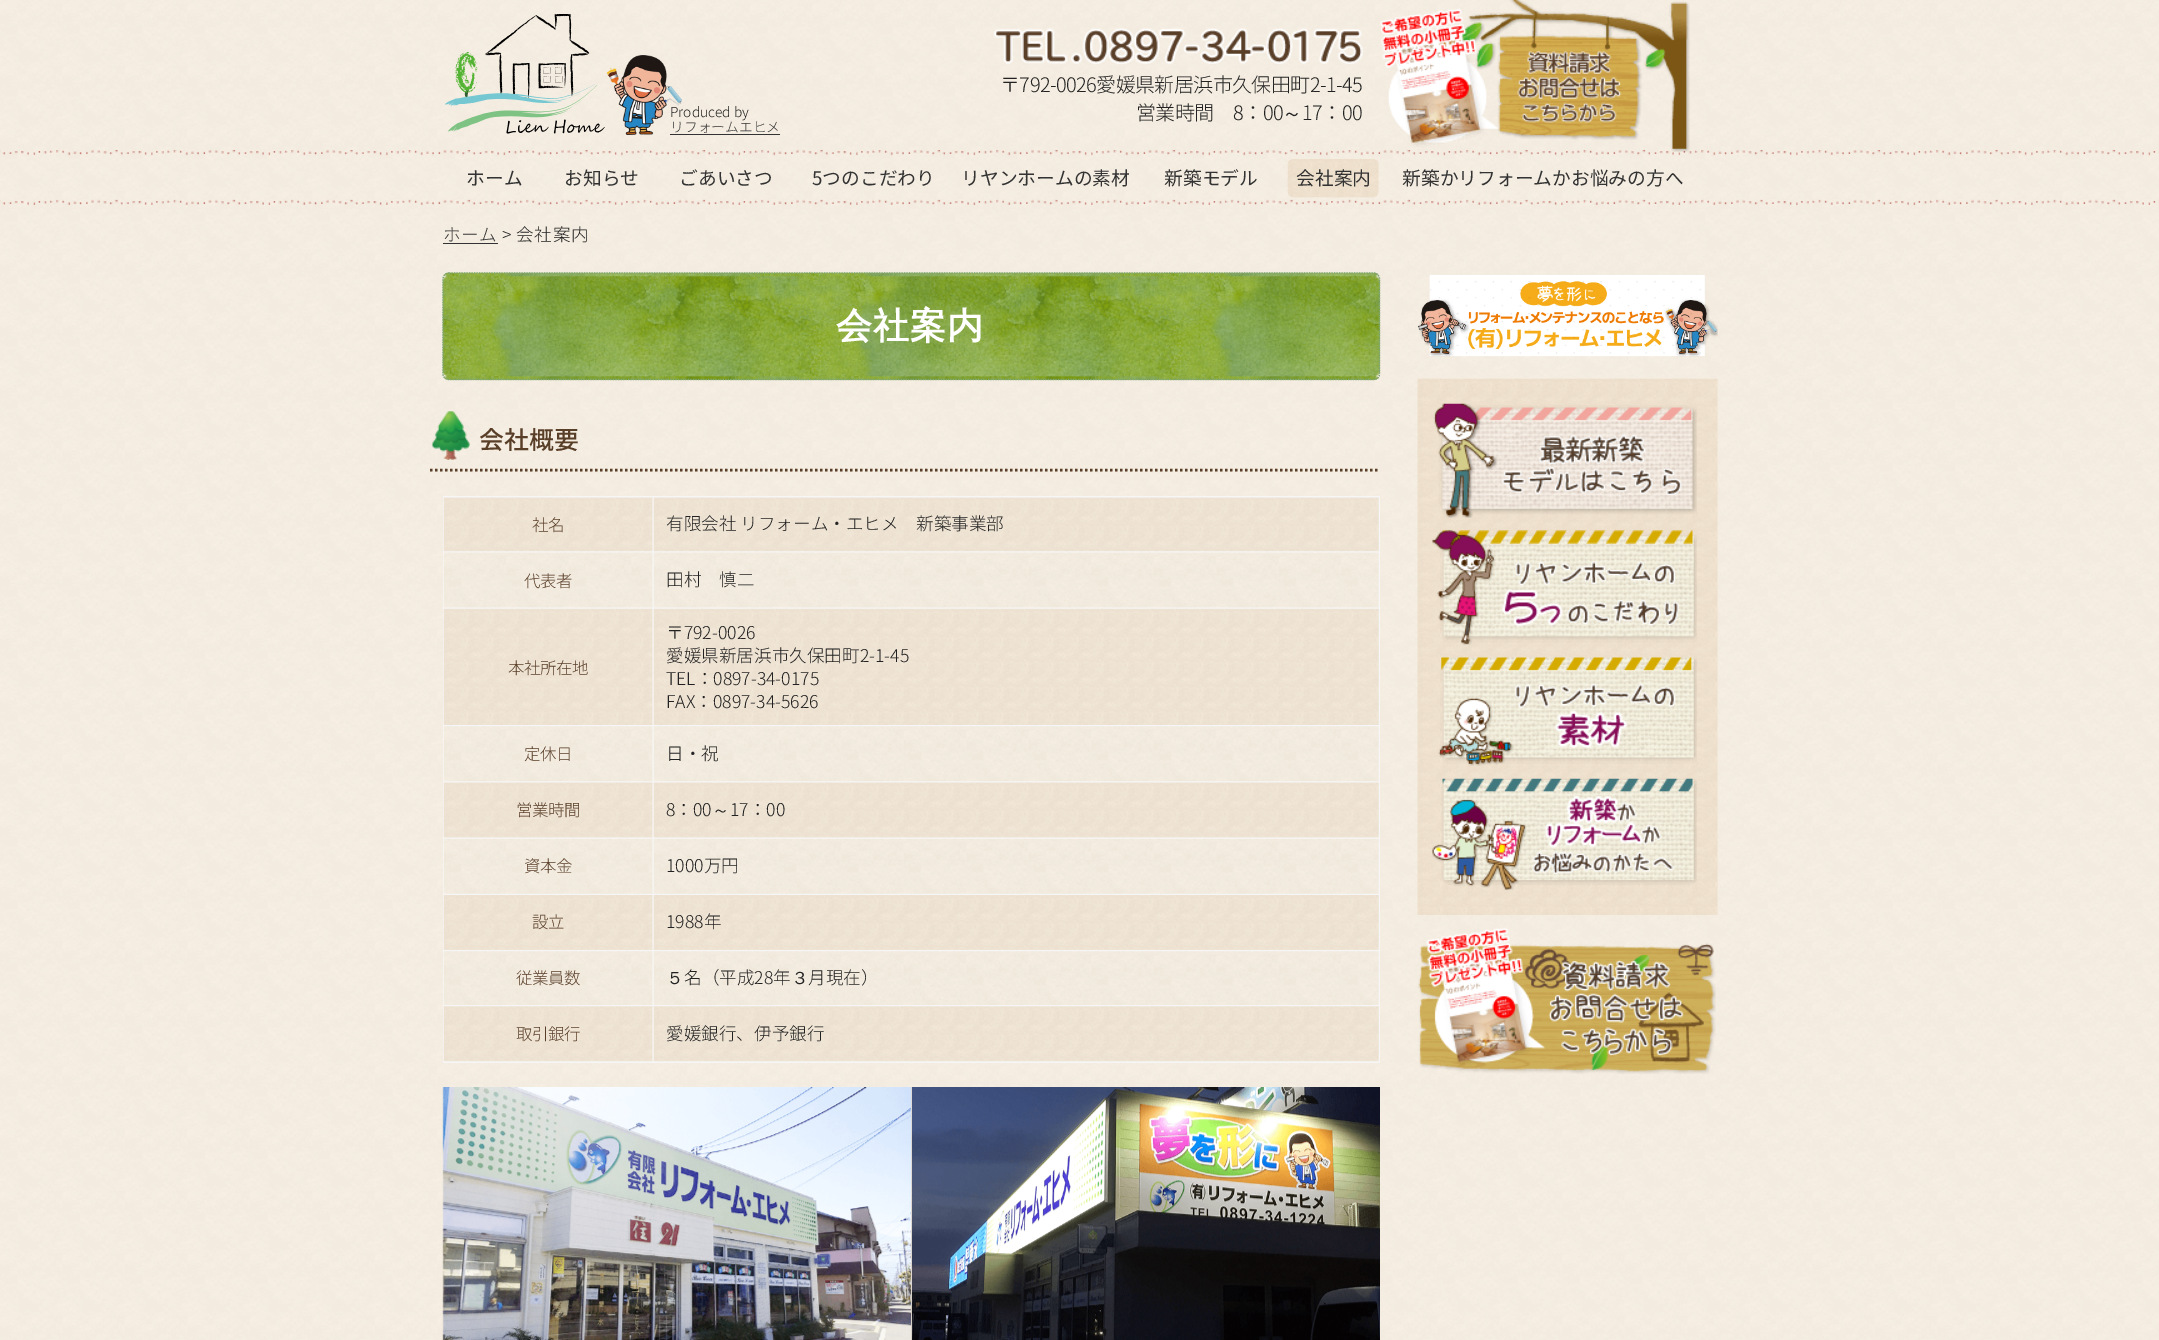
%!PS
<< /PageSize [2159 1340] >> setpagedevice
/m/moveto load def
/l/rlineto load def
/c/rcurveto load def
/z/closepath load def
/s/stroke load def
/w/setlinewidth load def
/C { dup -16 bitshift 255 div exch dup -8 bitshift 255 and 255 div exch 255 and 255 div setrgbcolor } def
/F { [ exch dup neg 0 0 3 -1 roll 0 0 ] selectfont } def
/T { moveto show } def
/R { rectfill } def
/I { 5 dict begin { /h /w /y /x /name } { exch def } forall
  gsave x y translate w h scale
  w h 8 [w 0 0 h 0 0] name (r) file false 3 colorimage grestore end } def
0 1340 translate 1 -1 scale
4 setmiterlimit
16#FFFFFF C
0 0 2159 1340 R
(1.rgb) 0 0 2159 1340 I
(2.rgb) 444 14 161 120 I
(3.rgb) 606 55 76 80 I
/NotoSansCJKJP-Light 13.75 F
16#222222 C
(Produced by) 670 117 T
16#333333 C
(リフォームエヒメ) 670 132 T
670 134 110 1 R
(4.rgb) 993 28 370 36 I
/NotoSansCJKJP-Light 20 F
16#222222 C
1000 92 m -.6 0 (〒792-0026愛媛県新居浜市久保田町2-1-45) ashow
1136 120 m -.6 0 (営業時間) ashow
1233 120 m -.6 0 (8：00) ashow
/WenQuanYiZenHei-Medium 20 F
1282 120 m -.6 0 (～) ashow
/NotoSansCJKJP-Light 20 F
1302 120 m -.6 0 (17：00) ashow
(6.rgb) 0 150 2159 55 I
(5.rgb) 1380 0 310 152 I
/NotoSansCJKJP-Regular 18.75 F
16#333333 C
(ホーム) 466 185 T
(お知らせ) 564 185 T
(ごあいさつ) 679 185 T
(5つのこだわり) 812 185 T
(リヤンホームの素材) 961 185 T
(新築モデル) 1164 185 T
(7.rgb) 1287 159 92 39 I
(会社案内) 1296 185 T
(新築かリフォームかお悩みの方へ) 1402 185 T
/NotoSansCJKJP-Light 17.6 F
443 241 m .5 0 (ホーム) ashow
443 243 55 1 R
16#222222 C
502 241 m .5 0 (> 会社案内) ashow
(8.rgb) 442 272 938 108 I
16#7FA67B C
1.2 w
[1.25 1.25] 0 setdash
449 273 m 925 0 l 3 0 5.5 2.5 5.5 6 c 0 95 l 0 3 -2.5 5.5 -5.5 5.5 c -925 0 l -3.5 0 -6 -2.5 -6 -5.5 c 0 -95 l 0 -3.5 2.5 -6 6 -6 c z s
/WenQuanYiZenHei-Bold 36 F
16#FFFFFF C
836 338 m 1 0 (会社案内) ashow
(9.rgb) 431 411 39 49 I
16#593E28 C
2.5 w
[2.5 2.5] 0 setdash
430 470 m 950 0 l s
/NotoSansCJKJP-Medium 25 F
(会社概要) 479 449 T
16#F6F6F6 C
443 496 937 567 R
(10.rgb) 443 497 210 55 I
/NotoSansCJKJP-Light 16.5 F
16#593E28 C
532 531 m -.6 0 (社名) ashow
(11.rgb) 653 497 726 55 I
/NotoSansCJKJP-Light 17.6 F
16#222222 C
(有限会社 リフォーム・エヒメ) 666 530 T
(新築事業部) 916 530 T
(12.rgb) 443 552 210 56 I
/NotoSansCJKJP-Light 16.5 F
16#593E28 C
524 587 m -.6 0 (代表者) ashow
(13.rgb) 653 552 726 56 I
/NotoSansCJKJP-Light 17.6 F
16#222222 C
(田村) 666 586 T
(慎二) 719 586 T
(14.rgb) 443 608 210 117 I
/NotoSansCJKJP-Light 16.5 F
16#593E28 C
508 674 m -.6 0 (本社所在地) ashow
(15.rgb) 653 608 726 117 I
/NotoSansCJKJP-Light 17.6 F
16#222222 C
(〒792-0026) 666 639 T
(愛媛県新居浜市久保田町2-1-45) 666 662 T
(TEL：0897-34-0175) 666 685 T
(FAX：0897-34-5626) 666 708 T
(16.rgb) 443 726 210 56 I
/NotoSansCJKJP-Light 16.5 F
16#593E28 C
524 760 m -.6 0 (定休日) ashow
(17.rgb) 653 726 726 56 I
/NotoSansCJKJP-Light 17.6 F
16#222222 C
(日・祝) 666 760 T
(18.rgb) 443 782 210 56 I
/NotoSansCJKJP-Light 16.5 F
16#593E28 C
516 816 m -.6 0 (営業時間) ashow
(19.rgb) 653 782 726 56 I
/NotoSansCJKJP-Light 17.6 F
16#222222 C
(8：00) 666 816 T
/WenQuanYiZenHei-Medium 17.6 F
(～) 712 816 T
/NotoSansCJKJP-Light 17.6 F
(17：00) 730 816 T
(20.rgb) 443 838 210 56 I
/NotoSansCJKJP-Light 16.5 F
16#593E28 C
524 872 m -.6 0 (資本金) ashow
(21.rgb) 653 838 726 56 I
/NotoSansCJKJP-Light 17.6 F
16#222222 C
(1000万円) 666 872 T
(22.rgb) 443 895 210 55 I
/NotoSansCJKJP-Light 16.5 F
16#593E28 C
532 928 m -.6 0 (設立) ashow
(23.rgb) 653 895 726 55 I
/NotoSansCJKJP-Light 17.6 F
16#222222 C
(1988年) 666 928 T
(24.rgb) 443 951 210 54 I
/NotoSansCJKJP-Light 16.5 F
16#593E28 C
516 984 m -.6 0 (従業員数) ashow
(25.rgb) 653 951 726 54 I
/WenQuanYiZenHei-Medium 17.6 F
16#222222 C
(５) 666 984 T
/NotoSansCJKJP-Light 17.6 F
(名（平成28年) 684 984 T
/WenQuanYiZenHei-Medium 17.6 F
(３) 791 984 T
/NotoSansCJKJP-Light 17.6 F
(月現在）) 808 984 T
(26.rgb) 443 1006 210 56 I
/NotoSansCJKJP-Light 16.5 F
16#593E28 C
516 1040 m -.6 0 (取引銀行) ashow
(27.rgb) 653 1006 726 56 I
/NotoSansCJKJP-Light 17.6 F
16#222222 C
(愛媛銀行、伊予銀行) 666 1040 T
(28.rgb) 442 1087 469 253 I
(29.rgb) 911 1087 469 253 I
(30.rgb) 1418 275 300 82 I
(31.rgb) 1417 378 301 537 I
(32.rgb) 1433 403 264 115 I
(33.rgb) 1432 530 265 115 I
(34.rgb) 1438 657 259 109 I
(35.rgb) 1432 778 265 112 I
(36.rgb) 1418 928 298 146 I
showpage
